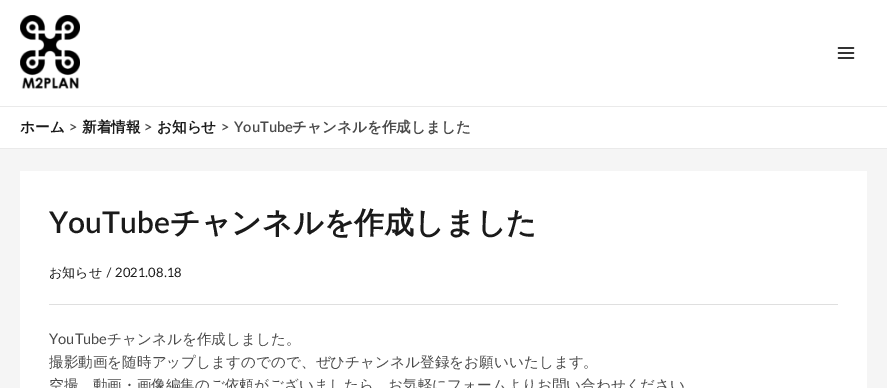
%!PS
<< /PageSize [887 388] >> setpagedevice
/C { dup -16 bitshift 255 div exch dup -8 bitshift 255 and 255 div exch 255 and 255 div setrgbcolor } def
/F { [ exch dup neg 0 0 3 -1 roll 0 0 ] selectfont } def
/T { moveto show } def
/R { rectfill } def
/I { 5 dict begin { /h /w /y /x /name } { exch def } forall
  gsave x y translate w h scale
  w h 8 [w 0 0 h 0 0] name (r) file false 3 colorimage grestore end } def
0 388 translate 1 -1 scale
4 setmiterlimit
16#F5F5F5 C
0 0 887 388 R
16#FFFFFF C
0 0 887 106 R
16#EAEAEA C
0 106 887 1 R
(1.rgb) 20 15 60 74 I
(2.rgb) 837 47 18 12 I
16#FFFFFF C
0 107 887 41 R
16#EAEAEA C
0 148 887 1 R
/WenQuanYiZenHei-Bold 14.6 F
16#1A1A1A C
(ホーム) 20 132 T
/Lato-SemiBold 14.6 F
16#4A4A4A C
(>) 69 132 T
/WenQuanYiZenHei-Bold 14.6 F
16#1A1A1A C
(新着情報) 82 132 T
/Lato-SemiBold 14.6 F
16#4A4A4A C
(>) 144 132 T
/WenQuanYiZenHei-Bold 14.6 F
16#1A1A1A C
(お知らせ) 157 132 T
/Lato-SemiBold 14.6 F
16#4A4A4A C
(>) 221 132 T
(YouTube) 234 132 T
/WenQuanYiZenHei-Bold 14.6 F
(チャンネルを作成しました) 292 132 T
16#FFFFFF C
20 171 847 217 R
16#DFDFDF C
49 304 789 1 R
/Lato-SemiBold 30 F
16#1A1A1A C
(YouTube) 49 233 T
/WenQuanYiZenHei-Bold 30 F
(チャンネルを作成しました) 170 233 T
/WenQuanYiZenHei-Medium 13 F
(お知らせ) 49 277 T
/Lato-Regular 13 F
(/ 2021.08.18) 106 277 T
/Lato-Regular 14.6 F
16#4A4A4A C
(YouTube) 49 344 T
/WenQuanYiZenHei-Medium 14.6 F
(チャンネルを作成しました。) 107 344 T
(撮影動画を随時アップしますのでので、ぜひチャンネル登録をお願いいたします。) 49 367 T
(空撮、動画・画像編集のご依頼がございましたら、お気軽にフォームよりお問い合わせください) 49 390 T
showpage
